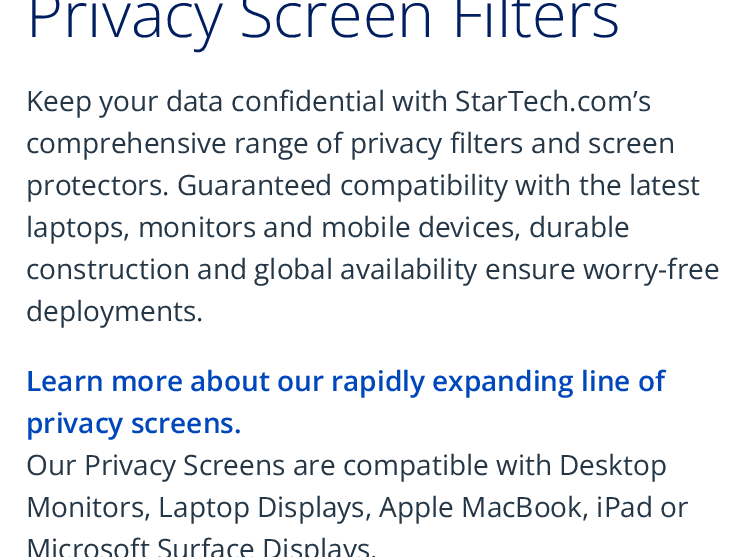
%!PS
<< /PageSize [753 557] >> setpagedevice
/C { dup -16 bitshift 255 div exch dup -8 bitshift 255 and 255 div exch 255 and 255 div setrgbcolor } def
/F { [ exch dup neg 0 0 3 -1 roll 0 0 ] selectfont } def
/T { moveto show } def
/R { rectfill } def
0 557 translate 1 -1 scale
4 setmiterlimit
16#FFFFFF C
0 0 753 557 R
/OpenSans-Light 63 F
16#001E60 C
(Privacy Screen Filters) 26 37 T
/OpenSans-Regular 28 F
16#253746 C
(Keep your data confidential with StarTech.com’s) 26 111 T
(comprehensive range of privacy filters and screen) 26 153 T
(protectors. Guaranteed compatibility with the latest) 26 195 T
(laptops, monitors and mobile devices, durable) 26 237 T
(construction and global availability ensure worry-free) 26 279 T
(deployments.) 26 321 T
/OpenSans-SemiBold 28 F
16#0047BB C
(Learn more about our rapidly expanding line of) 26 391 T
(privacy screens.) 26 433 T
/OpenSans-Regular 28 F
16#253746 C
(Our Privacy Screens are compatible with Desktop) 26 475 T
(Monitors, Laptop Displays, Apple MacBook, iPad or) 26 517 T
(Microsoft Surface Displays.) 26 559 T
showpage
